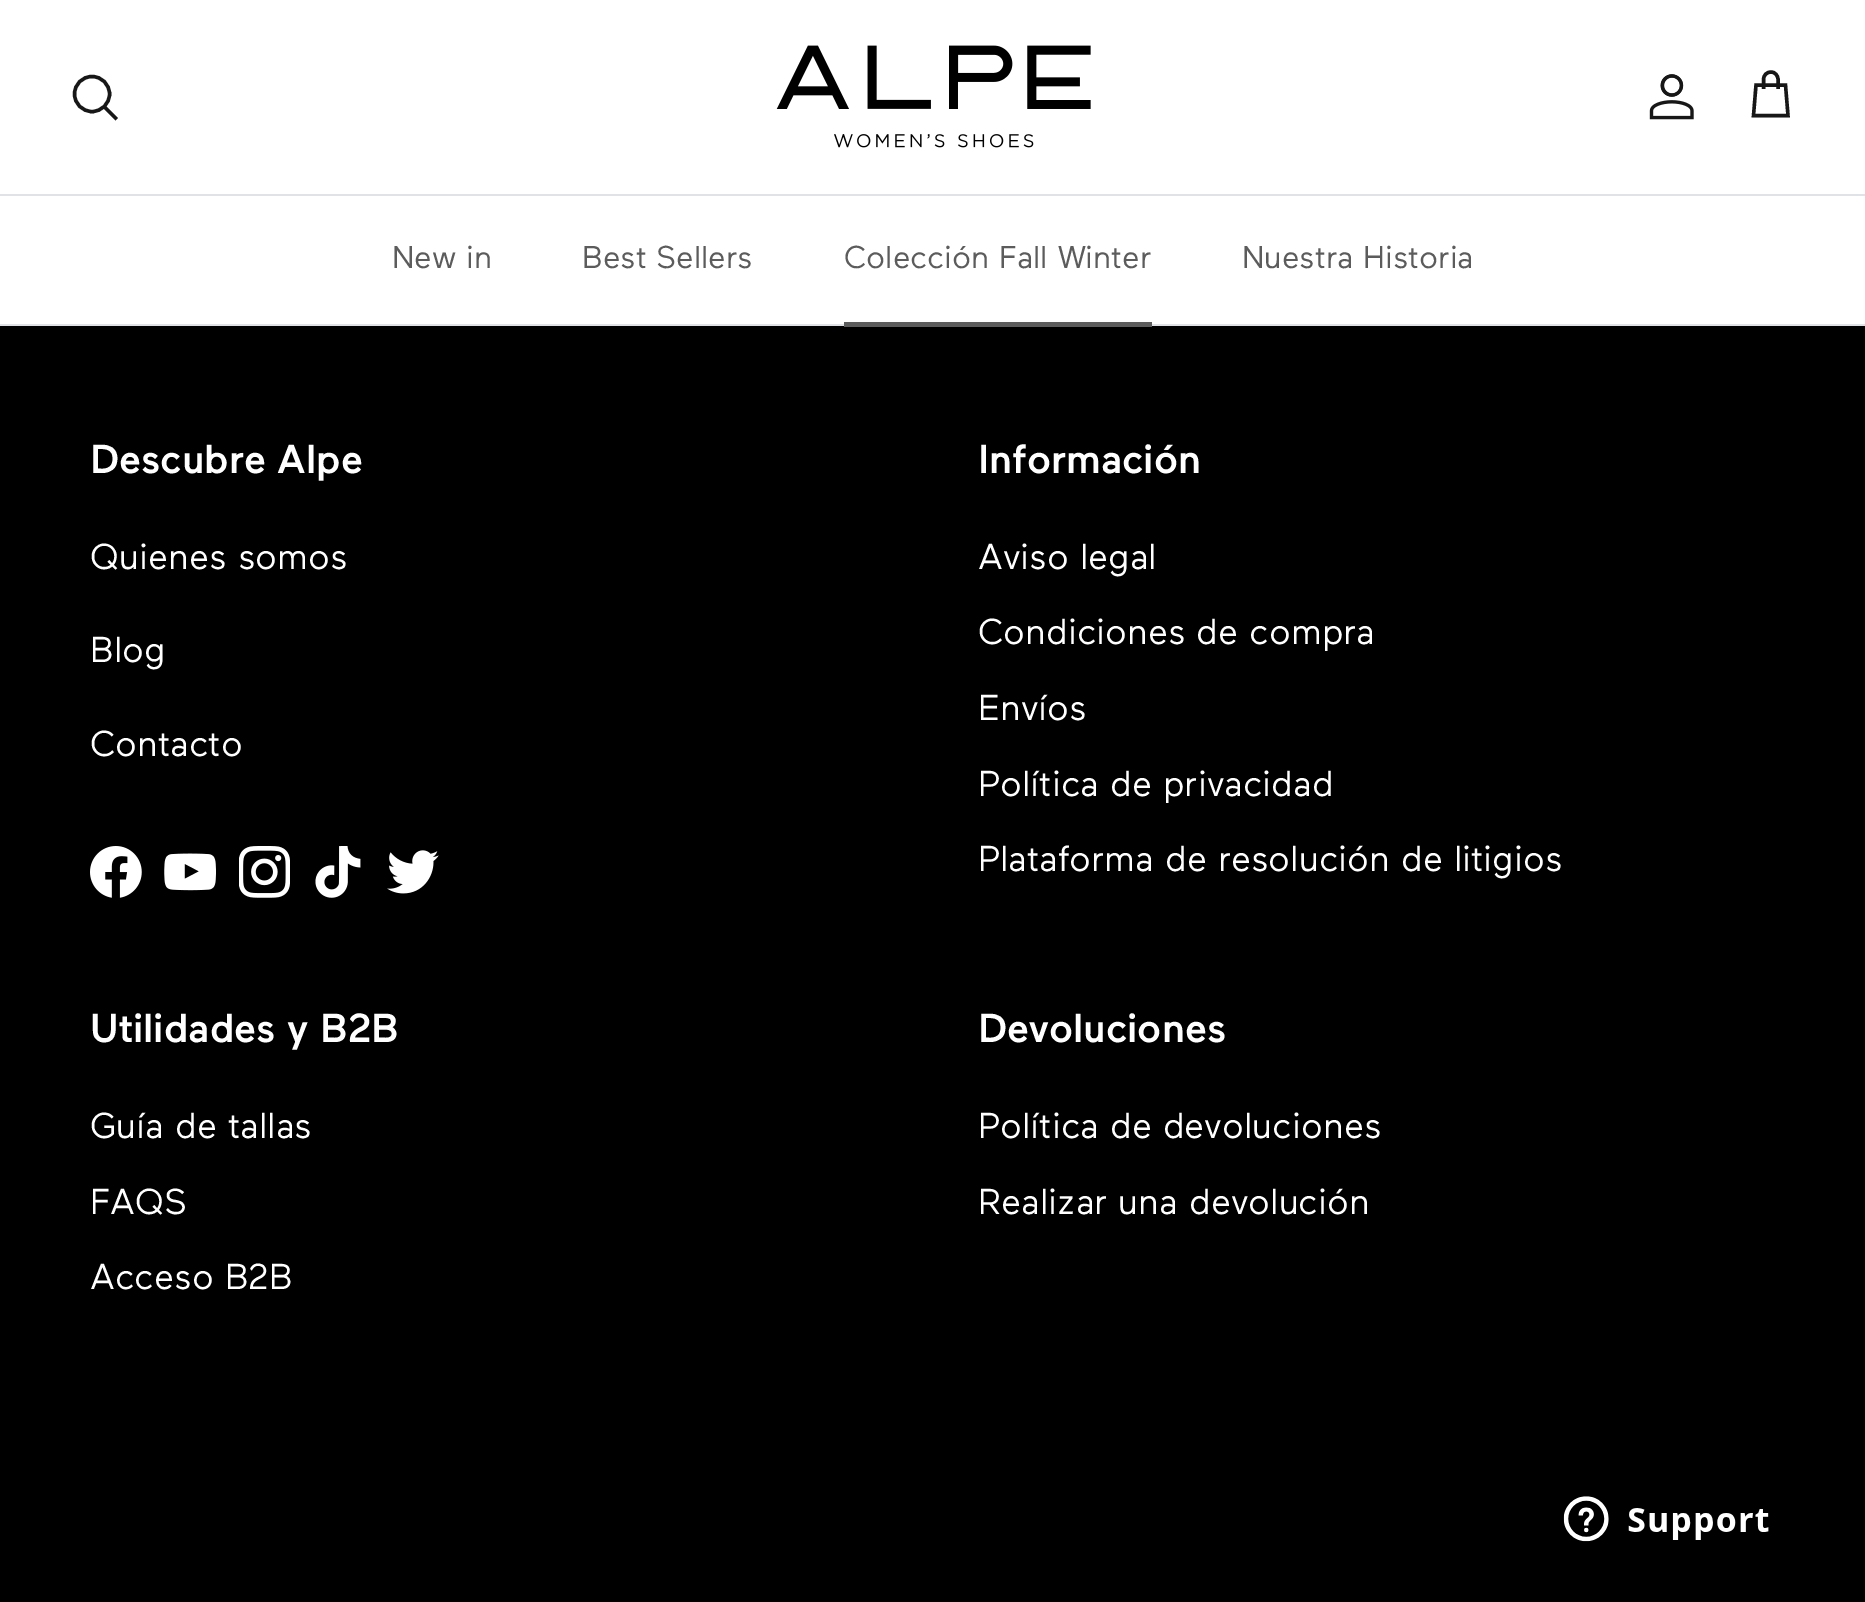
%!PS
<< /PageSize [1865 1602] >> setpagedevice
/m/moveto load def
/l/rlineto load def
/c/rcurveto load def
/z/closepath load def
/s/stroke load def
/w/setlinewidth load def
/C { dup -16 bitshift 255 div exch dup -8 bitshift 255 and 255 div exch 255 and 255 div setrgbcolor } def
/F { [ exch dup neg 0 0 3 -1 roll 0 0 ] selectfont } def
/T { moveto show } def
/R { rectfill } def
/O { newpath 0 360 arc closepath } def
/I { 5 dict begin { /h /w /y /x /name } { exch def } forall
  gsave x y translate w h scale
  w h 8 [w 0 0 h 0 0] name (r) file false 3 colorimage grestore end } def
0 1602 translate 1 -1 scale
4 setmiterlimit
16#000000 C
0 0 1865 1602 R
16#FFFFFF C
0 0 1865 194 R
16#DFE3E8 C
0 194 1865 2 R
16#171717 C
3.4 w
92 94 17.5 O s
2 setlinecap
105.5 108 m 10 10 l s
(1.rgb) 776 45 315 103 I
(2.rgb) 1649 74 45 46 I
0 setlinecap
1778 89 m 0 -9.5 l 0 -4 -3 -7.5 -7 -7.5 c -4.5 0 -7.5 3.5 -7.5 7.5 c 0 9.5 l 1756 85 m 29.5 0 l 2.5 30.5 l -34.5 0 l z s
16#DFE3E8 C
0 324 1865 2 R
16#FFFFFF C
0 196 1865 128 R
/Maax-Regular 31.5 F
16#5C5C5C C
(New in) 392 268 T
(Best Sellers) 582 268 T
(Colección Fall Winter) 844 268 T
844 322 308 5 R
(Nuestra Historia) 1242 268 T
/Maax-Medium 40.5 F
16#FFFFFF C
(Descubre Alpe) 90 473 T
/Maax-Regular 36 F
(Quienes somos) 90 569 T
(Blog) 90 662 T
(Contacto) 90 756 T
(3.rgb) 90 846 52 52 I
(4.rgb) 164 853 52 38 I
(5.rgb) 239 846 51 52 I
(6.rgb) 315 846 46 52 I
(7.rgb) 387 850 52 44 I
/Maax-Medium 40.5 F
(Información) 978 473 T
/Maax-Regular 36 F
(Aviso legal) 978 569 T
(Condiciones de compra) 978 644 T
(Envíos) 978 720 T
(Política de privacidad) 978 796 T
(Plataforma de resolución de litigios) 978 871 T
/Maax-Medium 40.5 F
(Utilidades y B2B) 90 1042 T
/Maax-Regular 36 F
(Guía de tallas) 90 1138 T
(FAQS) 90 1214 T
(Acceso B2B) 90 1289 T
/Maax-Medium 40.5 F
(Devoluciones) 978 1042 T
/Maax-Regular 36 F
(Política de devoluciones) 978 1138 T
(Realizar una devolución) 978 1214 T
(8.rgb) 1563 1496 206 46 I
showpage
